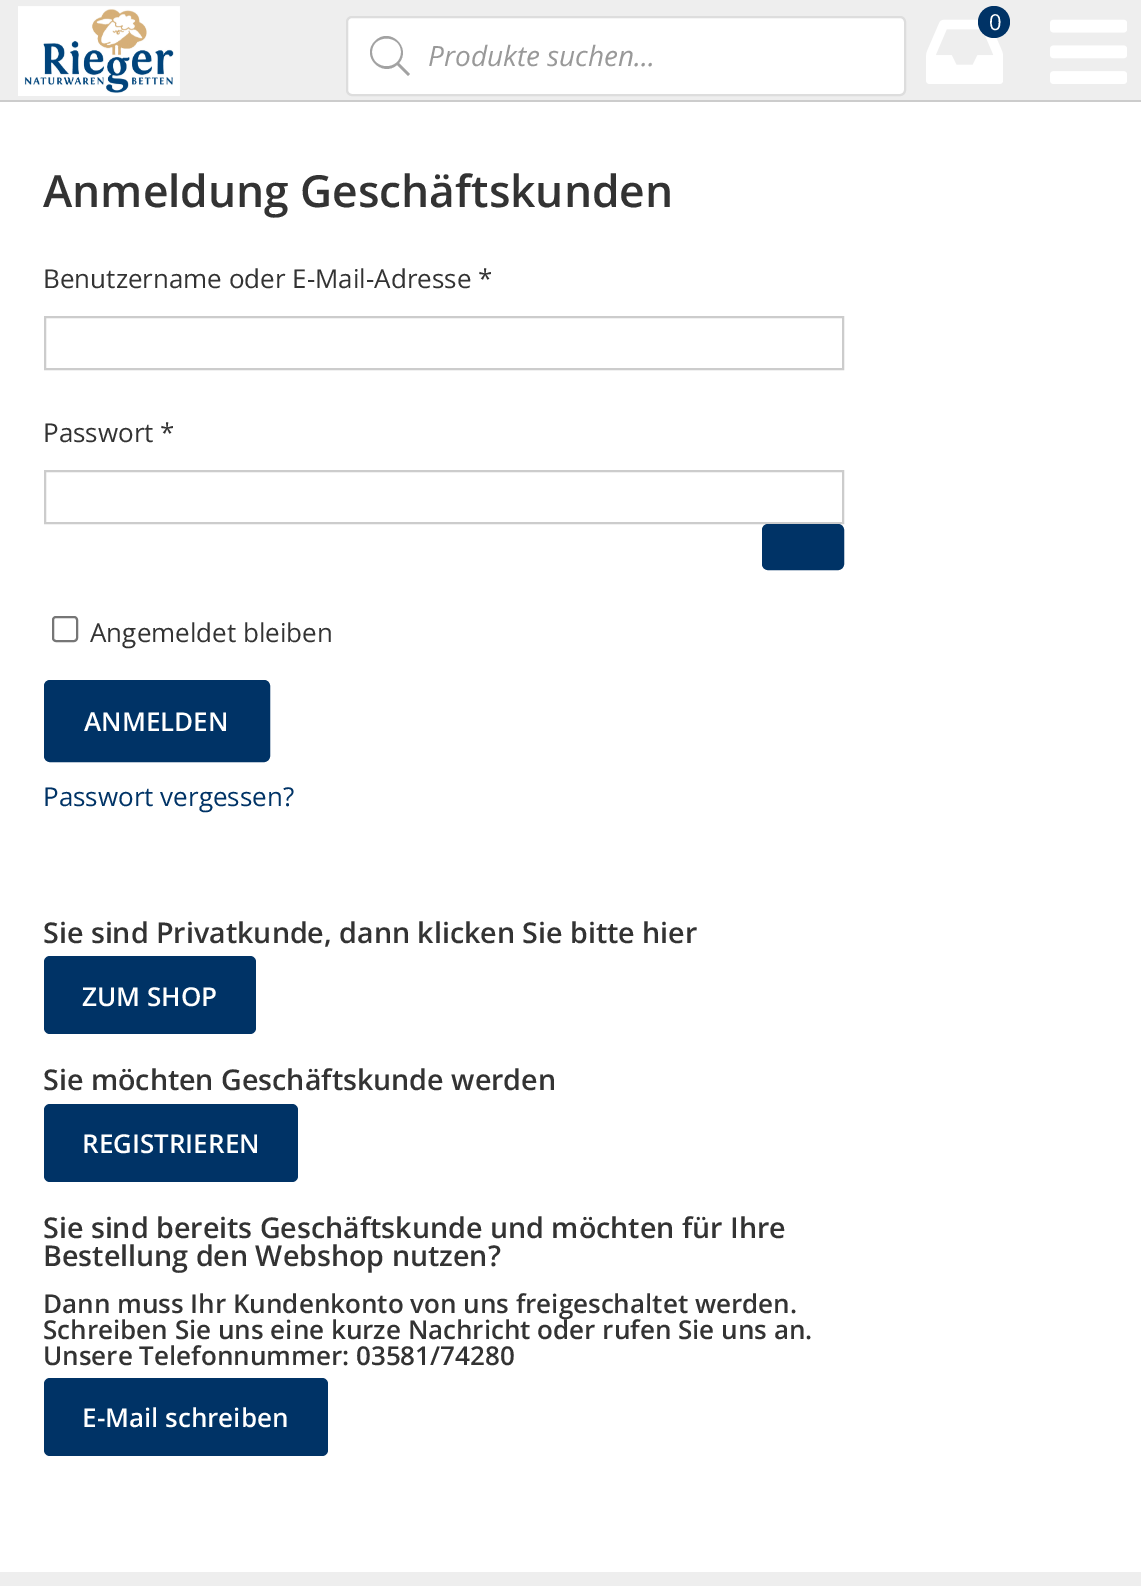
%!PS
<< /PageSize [1141 1586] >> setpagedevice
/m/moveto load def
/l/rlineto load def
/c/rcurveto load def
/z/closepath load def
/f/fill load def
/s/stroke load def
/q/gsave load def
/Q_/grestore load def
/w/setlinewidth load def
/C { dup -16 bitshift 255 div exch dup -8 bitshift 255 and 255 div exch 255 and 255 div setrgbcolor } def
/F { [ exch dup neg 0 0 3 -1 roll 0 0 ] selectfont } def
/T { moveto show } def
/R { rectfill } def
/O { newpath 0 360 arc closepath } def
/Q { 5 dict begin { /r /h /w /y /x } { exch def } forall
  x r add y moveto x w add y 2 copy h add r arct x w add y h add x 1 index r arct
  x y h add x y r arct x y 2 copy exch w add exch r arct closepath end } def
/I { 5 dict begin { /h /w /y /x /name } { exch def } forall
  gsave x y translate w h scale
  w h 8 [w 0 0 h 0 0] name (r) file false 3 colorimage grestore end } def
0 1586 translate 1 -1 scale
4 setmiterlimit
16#FFFFFF C
0 0 1141 1586 R
16#EEEEEE C
0 0 1141 100 R
16#CCCCCC C
0 100 1141 2 R
(1.rgb) 18 6 162 90 I
(2.rgb) 926 19 77 65 I
16#003366 C
994 22 16 O f
/OpenSans-Regular 22 F
16#FFFFFF C
(0) 989 30 T
(3.rgb) 1050 19 77 65 I
347 17 558 78 5 Q q f Q_
16#DDDDDD C
2 w
s
16#A2A2A2 C
410 74 m -11 -11 l 13 -15 -9 -37 -24 -22 c -15 15 7 37 22 24 c 11 11 l z 372 52 m 0 -18 29 -18 29 0 c 0 19 -29 19 -29 0 c z f
/OpenSans-Italic 28 F
16#999999 C
(Produkte suchen...) 428 66 T
/OpenSans-SemiBold 44.25 F
16#333333 C
(Anmeldung Geschäftskunden) 43 207 T
/OpenSans-Regular 26 F
(Benutzername oder E-Mail-Adresse *) 43 288 T
16#CCCCCC C
45 317 798 52 rectstroke
16#333333 C
(Passwort *) 43 442 T
16#CCCCCC C
45 471 798 52 rectstroke
16#003366 C
763 525 80 44 5 Q q f Q_
s
16#767676 C
53 617 24 24 3 Q s
16#333333 C
(Angemeldet bleiben) 90 642 T
16#003366 C
45 681 224 80 5 Q q f Q_
s
/OpenSans-SemiBold 26 F
16#FFFFFF C
(ANMELDEN) 84 731 T
/OpenSans-Regular 26 F
16#003366 C
(Passwort vergessen?) 43 806 T
/OpenSans-SemiBold 28.6 F
16#333333 C
(Sie sind Privatkunde, dann klicken Sie bitte hier) 43 943 T
16#003366 C
44 956 212 78 6 Q f
/OpenSans-SemiBold 26 F
16#FFFFFF C
(ZUM SHOP) 82 1006 T
/OpenSans-SemiBold 28.6 F
16#333333 C
(Sie möchten Geschäftskunde werden) 43 1090 T
16#003366 C
44 1104 254 78 6 Q f
/OpenSans-SemiBold 26 F
16#FFFFFF C
(REGISTRIEREN) 82 1153 T
/OpenSans-SemiBold 28.6 F
16#333333 C
(Sie sind bereits Geschäftskunde und möchten für Ihre) 43 1238 T
(Bestellung den Webshop nutzen?) 43 1266 T
/OpenSans-SemiBold 26 F
(Dann muss Ihr Kundenkonto von uns freigeschaltet werden.) 43 1313 T
(Schreiben Sie uns eine kurze Nachricht oder rufen Sie uns an.) 43 1339 T
(Unsere Telefonnummer: 03581/74280) 43 1365 T
16#003366 C
44 1378 284 78 6 Q f
16#FFFFFF C
(E-Mail schreiben) 82 1427 T
16#EEEEEE C
0 1572 1141 14 R
showpage
